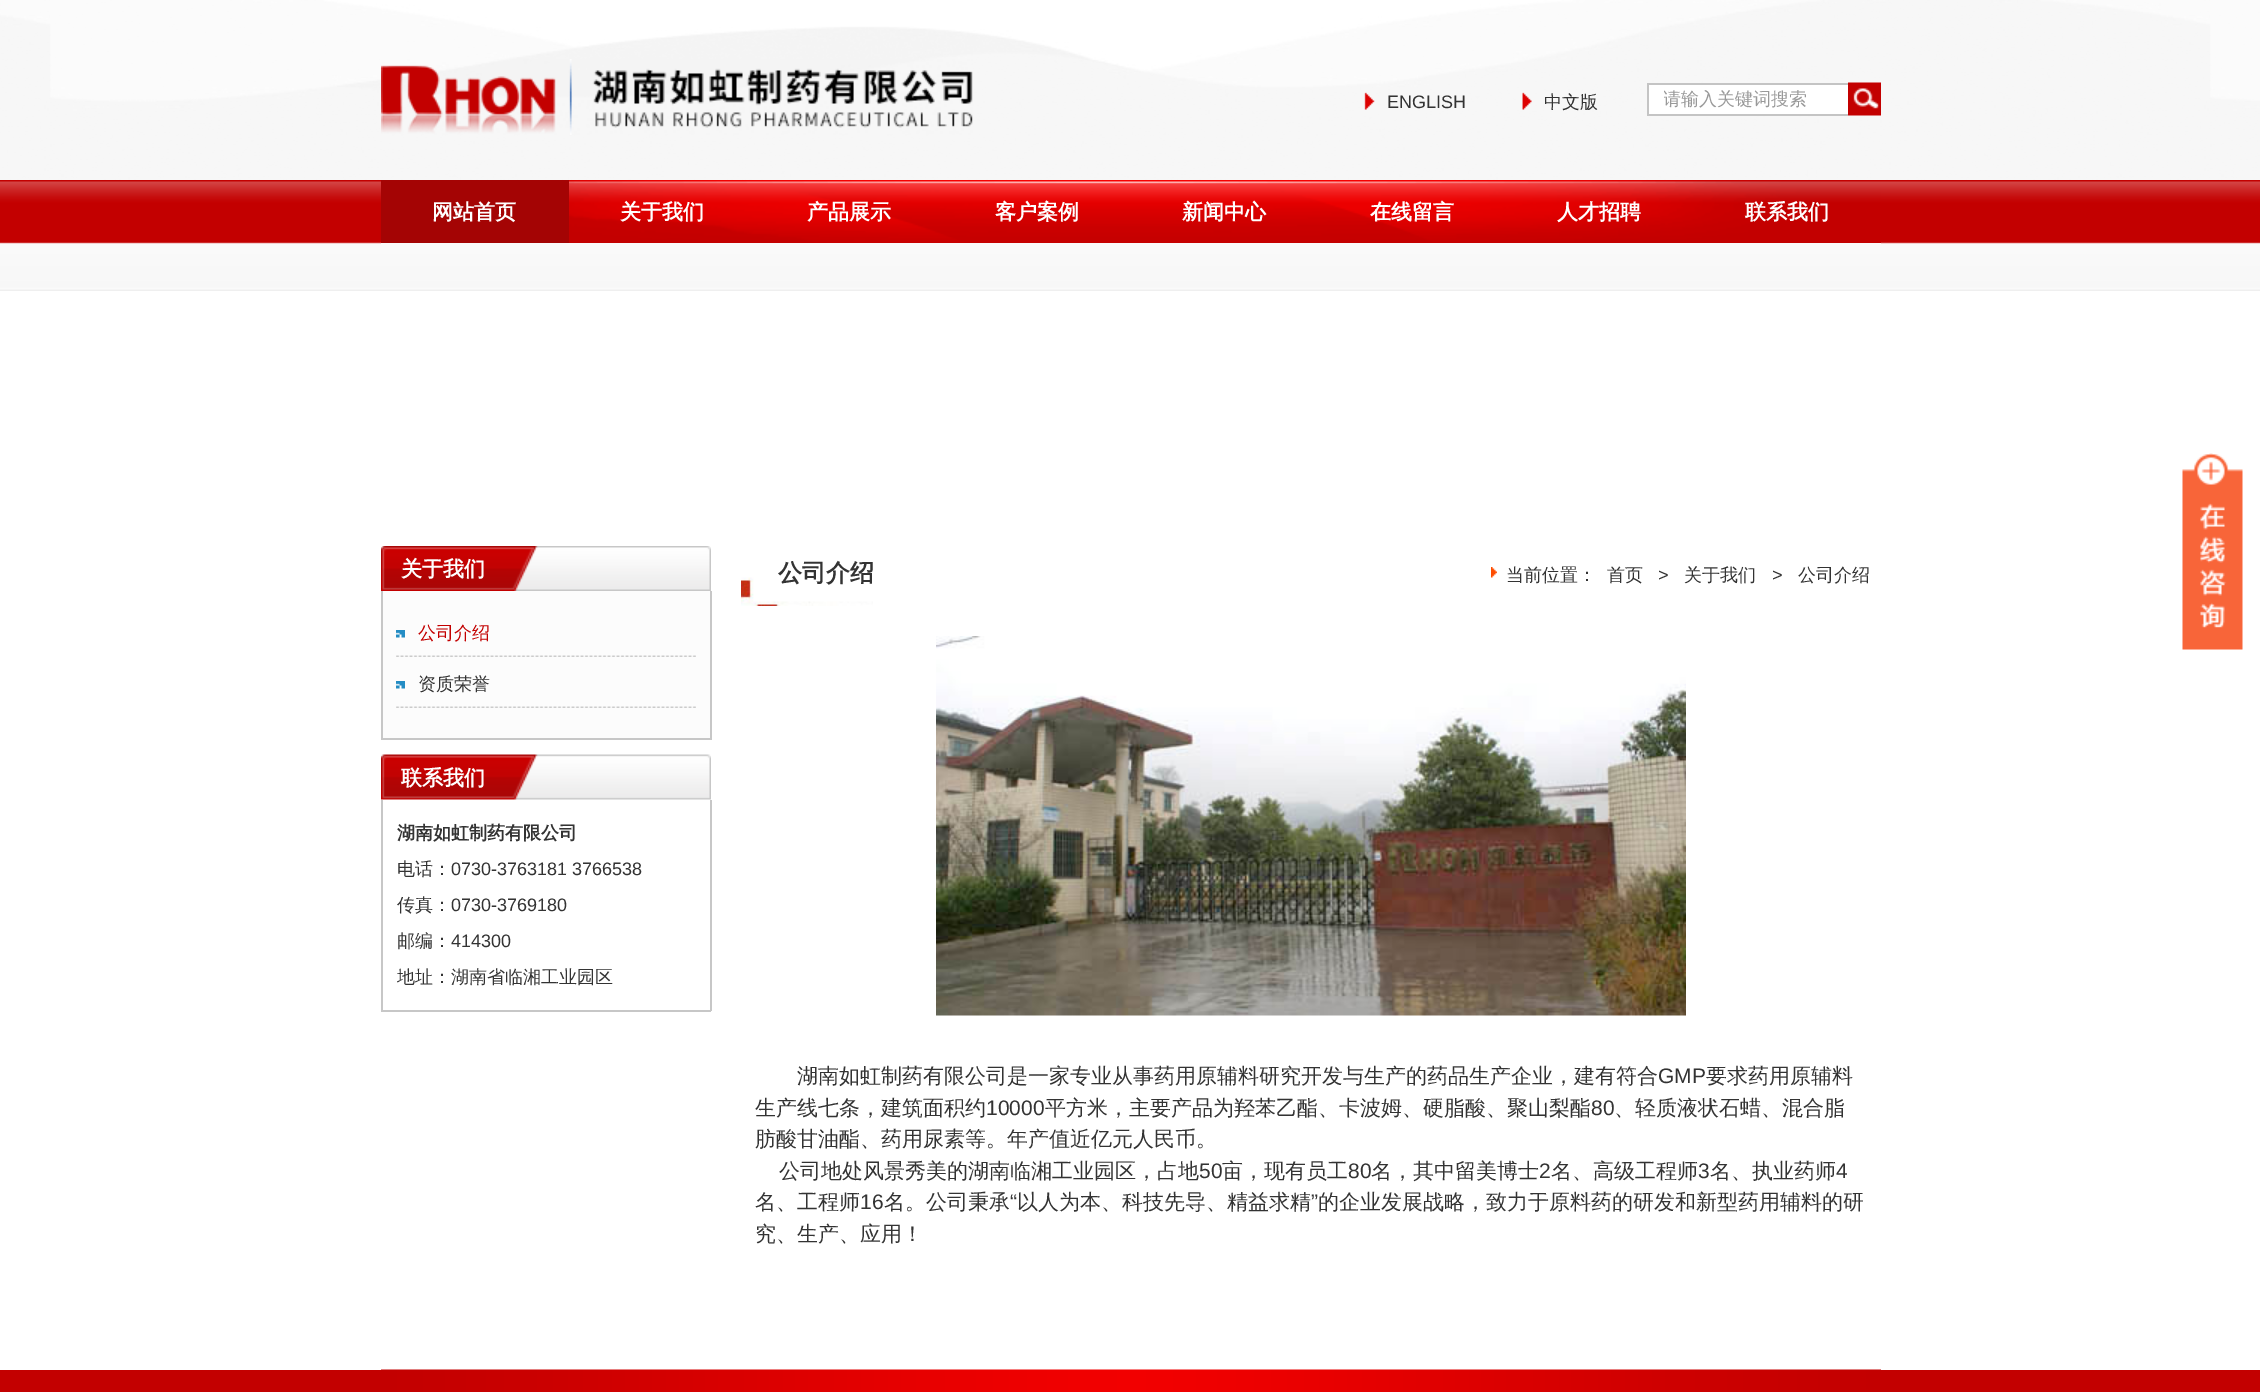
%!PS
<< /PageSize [2260 1392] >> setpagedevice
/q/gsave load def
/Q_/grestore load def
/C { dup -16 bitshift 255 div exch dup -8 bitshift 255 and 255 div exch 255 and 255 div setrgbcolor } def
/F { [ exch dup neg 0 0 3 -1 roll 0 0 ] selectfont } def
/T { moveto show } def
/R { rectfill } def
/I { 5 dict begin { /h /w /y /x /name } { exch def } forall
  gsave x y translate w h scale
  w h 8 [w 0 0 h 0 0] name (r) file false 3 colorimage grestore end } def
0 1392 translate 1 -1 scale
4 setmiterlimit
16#FFFFFF C
0 0 2260 1392 R
(1.rgb) 0 0 2260 180 I
(2.rgb) 381 59 592 76 I
(3.rgb) 1364 92 11 18 I
/LiberationSans-Regular 18 F
16#333333 C
(ENGLISH) 1387 108 T
(4.rgb) 1522 92 10 18 I
/WenQuanYiZenHei-Medium 18 F
(中文版) 1544 108 T
16#FFFFFF C
1649 85 199 29 R
16#C4C4C4 C
1647 83 201 2 R
1647 114 201 2 R
1647 83 2 33 R
q
1664 89 165 21 rectclip
16#999999 C
(请输入关键词搜索) 1663 105 T
Q_
(5.rgb) 1848 82 33 34 I
(6.rgb) 0 180 2260 111 I
(7.rgb) 569 182 1312 61 I
16#A40404 C
381 180 188 63 R
/WenQuanYiZenHei-Bold 21 F
16#FFFFFF C
(网站首页) 432 219 T
(关于我们) 620 219 T
(产品展示) 807 219 T
(客户案例) 995 219 T
(新闻中心) 1182 219 T
(在线留言) 1370 219 T
(人才招聘) 1557 219 T
(联系我们) 1745 219 T
16#FAFAFA C
381 243 1500 1 R
(8.rgb) 381 546 330 45 I
16#FFFFFF C
(关于我们) 401 576 T
16#FCFCFC C
383 591 327 147 R
16#C7C7C7 C
710 591 2 149 R
381 738 330 2 R
381 591 2 149 R
(9.rgb) 396 655 300 2 I
(10.rgb) 396 630 9 8 I
/WenQuanYiZenHei-Medium 18 F
16#C30000 C
(公司介绍) 418 639 T
(9.rgb) 396 706 300 2 I
(10.rgb) 396 681 9 8 I
16#333333 C
(资质荣誉) 418 690 T
(11.rgb) 381 754 330 46 I
/WenQuanYiZenHei-Bold 21 F
16#FFFFFF C
(联系我们) 401 785 T
16#C7C7C7 C
710 800 2 211 R
381 1010 330 2 R
381 800 2 211 R
/WenQuanYiZenHei-Bold 18 F
16#333333 C
(湖南如虹制药有限公司) 397 839 T
/WenQuanYiZenHei-Medium 18 F
(电话：) 397 875 T
/LiberationSans-Regular 18 F
(0730-3763181 3766538) 451 875 T
/WenQuanYiZenHei-Medium 18 F
(传真：) 397 911 T
/LiberationSans-Regular 18 F
(0730-3769180) 451 911 T
/WenQuanYiZenHei-Medium 18 F
(邮编：) 397 947 T
/LiberationSans-Regular 18 F
(414300) 451 947 T
/WenQuanYiZenHei-Medium 18 F
(地址：湖南省临湘工业园区) 397 983 T
(12.rgb) 741 577 132 29 I
/WenQuanYiZenHei-Bold 24 F
(公司介绍) 778 581 T
(13.rgb) 1491 567 6 11 I
/WenQuanYiZenHei-Medium 18 F
(当前位置：) 1506 581 T
(首页) 1607 581 T
/LiberationSans-Regular 18 F
(>) 1658 581 T
/WenQuanYiZenHei-Medium 18 F
(关于我们) 1684 581 T
/LiberationSans-Regular 18 F
(>) 1772 581 T
/WenQuanYiZenHei-Medium 18 F
(公司介绍) 1798 581 T
(14.rgb) 936 636 750 380 I
/WenQuanYiZenHei-Medium 21 F
(湖南如虹制药有限公司是一家专业从事药用原辅料研究开发与生产的药品生产企业，建有符合) 797 1083 T
/LiberationSans-Regular 21 F
(GMP) 1658 1083 T
/WenQuanYiZenHei-Medium 21 F
(要求药用原辅料) 1706 1083 T
(生产线七条，建筑面积约) 755 1115 T
/LiberationSans-Regular 21 F
(10000) 986 1115 T
/WenQuanYiZenHei-Medium 21 F
(平方米，主要产品为羟苯乙酯、卡波姆、硬脂酸、聚山梨酯) 1045 1115 T
/LiberationSans-Regular 21 F
(80) 1591 1115 T
/WenQuanYiZenHei-Medium 21 F
(、轻质液状石蜡、混合脂) 1614 1115 T
(肪酸甘油酯、药用尿素等。年产值近亿元人民币。) 755 1146 T
(公司地处风景秀美的湖南临湘工业园区，占地) 779 1178 T
/LiberationSans-Regular 21 F
(50) 1199 1178 T
/WenQuanYiZenHei-Medium 21 F
(亩，现有员工) 1222 1178 T
/LiberationSans-Regular 21 F
(80) 1348 1178 T
/WenQuanYiZenHei-Medium 21 F
(名，其中留美博士) 1371 1178 T
/LiberationSans-Regular 21 F
(2) 1539 1178 T
/WenQuanYiZenHei-Medium 21 F
(名、高级工程师) 1551 1178 T
/LiberationSans-Regular 21 F
(3) 1698 1178 T
/WenQuanYiZenHei-Medium 21 F
(名、执业药师) 1710 1178 T
/LiberationSans-Regular 21 F
(4) 1836 1178 T
/WenQuanYiZenHei-Medium 21 F
(名、工程师) 755 1209 T
/LiberationSans-Regular 21 F
(16) 860 1209 T
/WenQuanYiZenHei-Medium 21 F
(名。公司秉承) 884 1209 T
/LiberationSans-Regular 21 F
(“) 1010 1209 T
/WenQuanYiZenHei-Medium 21 F
(以人为本、科技先导、精益求精) 1017 1209 T
/LiberationSans-Regular 21 F
(”) 1311 1209 T
/WenQuanYiZenHei-Medium 21 F
(的企业发展战略，致力于原料药的研发和新型药用辅料的研) 1318 1209 T
(究、生产、应用！) 755 1241 T
(15.rgb) 2182 453 61 197 I
16#C30000 C
0 1370 2260 22 R
(16.rgb) 381 1369 1500 23 I
showpage
